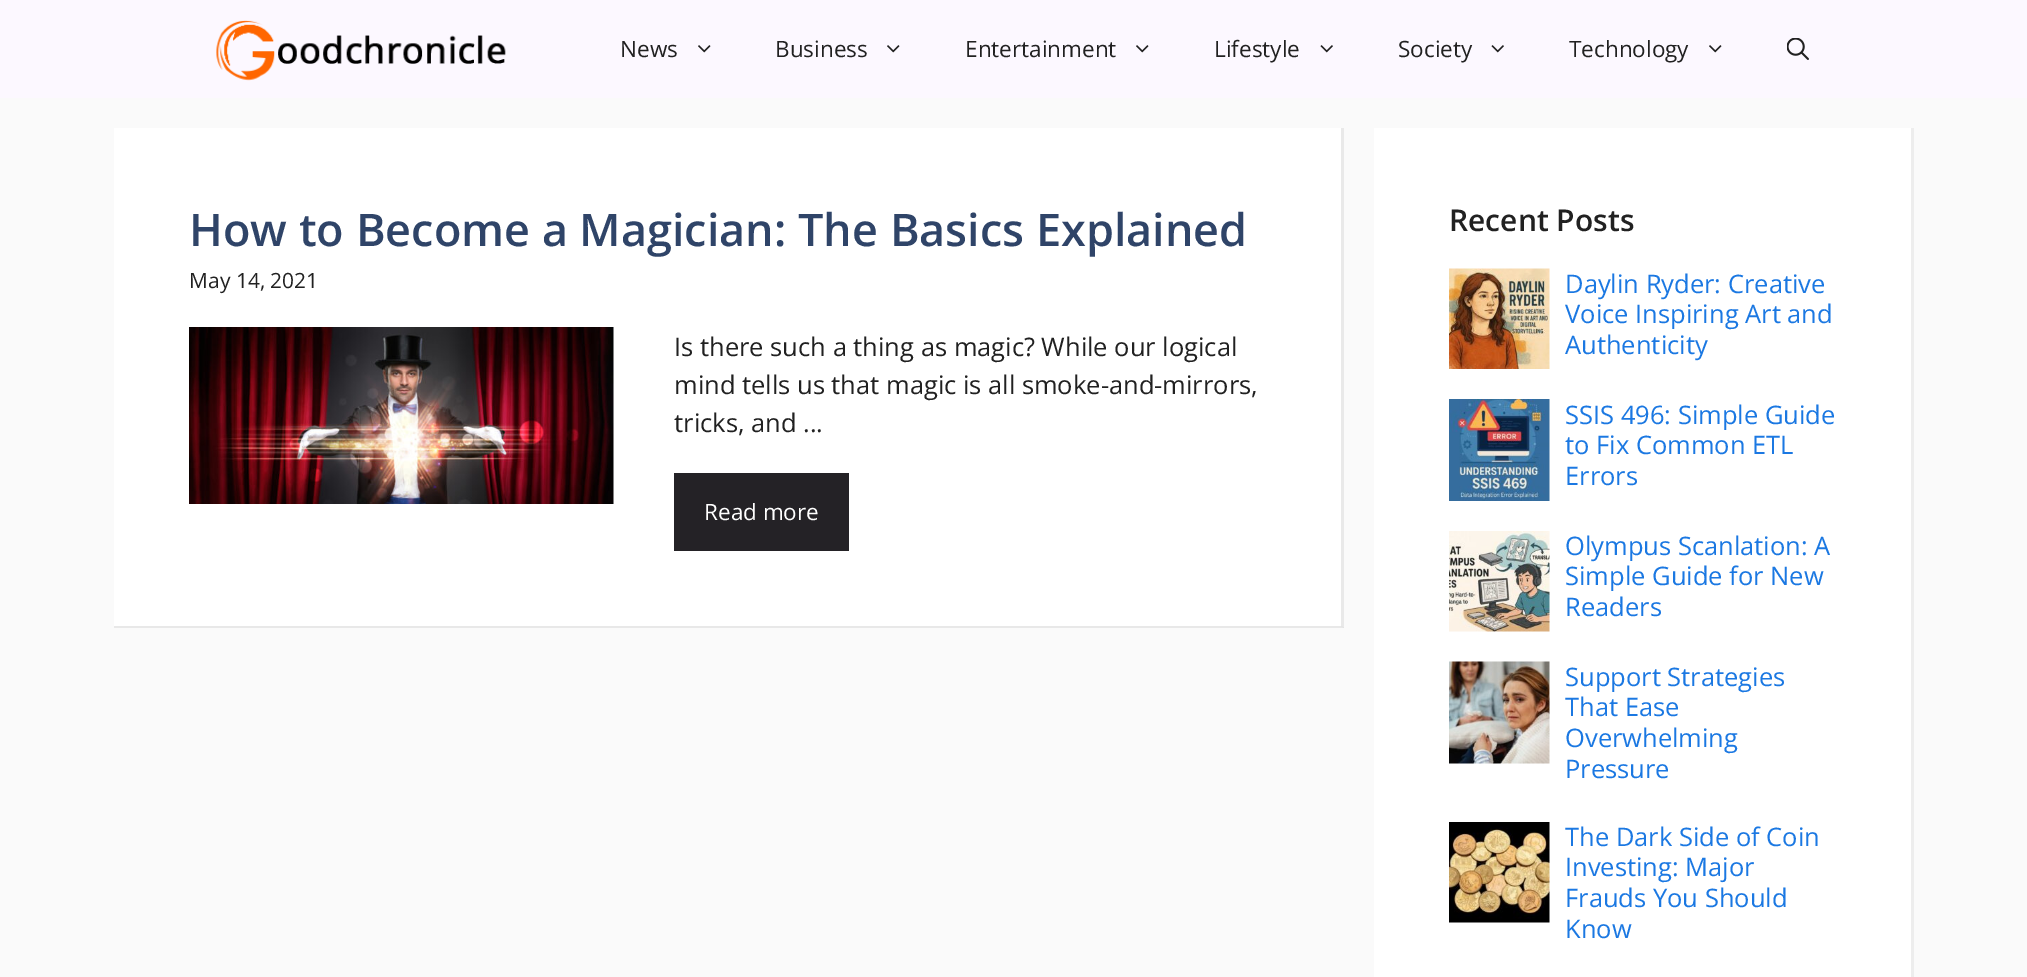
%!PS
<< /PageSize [2027 977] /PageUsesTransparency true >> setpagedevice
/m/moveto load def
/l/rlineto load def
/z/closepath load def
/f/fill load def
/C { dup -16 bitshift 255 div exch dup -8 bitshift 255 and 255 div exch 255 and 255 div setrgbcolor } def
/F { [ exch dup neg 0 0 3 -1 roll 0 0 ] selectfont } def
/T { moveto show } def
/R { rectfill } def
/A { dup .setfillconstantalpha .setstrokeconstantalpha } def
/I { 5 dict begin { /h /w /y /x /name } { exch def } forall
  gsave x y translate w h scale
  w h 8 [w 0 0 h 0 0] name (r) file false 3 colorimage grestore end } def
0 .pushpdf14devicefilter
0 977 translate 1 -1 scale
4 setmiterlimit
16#FAFAFA C
0 0 2027 977 R
16#FCF8FF C
0 0 2027 98 R
(1.rgb) 216 20 290 61 I
/OpenSans-Regular 22.5 F
16#212121 C
(News) 620 57 T
(2.rgb) 698 45 13 8 I
(Business) 775 57 T
(2.rgb) 887 45 13 8 I
(Entertainment) 965 57 T
(2.rgb) 1136 45 13 8 I
(Lifestyle) 1214 57 T
(3.rgb) 1320 45 13 8 I
(Society) 1398 57 T
(3.rgb) 1491 45 13 8 I
(Technology) 1569 57 T
(2.rgb) 1709 45 13 8 I
(4.rgb) 1787 38 22 22 I
16#E9E9E9 C
1344 128 m 0 500 l -3 -2 l 0 -498 l z f
0.07 A
16#000000 C
1344 628 m -1230 0 l 0 -2 l 1227 0 l z f
1 A
16#FFFFFF C
114 128 1227 498 R
/OpenSans-SemiBold 45 F
16#2F4468 C
(How to Become a Magician: The Basics Explained) 189 246 T
/OpenSans-Regular 21 F
16#212121 C
(May 14, 2021) 189 288 T
(5.rgb) 189 327 425 177 I
/OpenSans-Regular 25.5 F
(Is there such a thing as magic? While our logical) 674 356 T
(mind tells us that magic is all smoke-and-mirrors,) 674 394 T
(tricks, and ...) 674 432 T
16#242226 C
674 473 175 78 R
/OpenSans-Regular 22.5 F
16#FFFFFF C
(Read more) 704 520 T
1374 128 537 849 R
16#EDEDED C
1914 128 m 0 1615 l -3 -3 l 0 -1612 l z f
/OpenSans-SemiBold 30 F
16#212121 C
(Recent Posts) 1449 231 T
(6.rgb) 1449 268 101 101 I
/OpenSans-Regular 25.5 F
16#1B78E2 C
(Daylin Ryder: Creative) 1565 293 T
(Voice Inspiring Art and) 1565 323 T
(Authenticity) 1565 354 T
(7.rgb) 1449 399 101 102 I
(SSIS 496: Simple Guide) 1565 424 T
(to Fix Common ETL) 1565 454 T
(Errors) 1565 485 T
(8.rgb) 1449 531 101 101 I
(Olympus Scanlation: A) 1565 555 T
(Simple Guide for New) 1565 585 T
(Readers) 1565 616 T
(9.rgb) 1449 661 101 103 I
(Support Strategies) 1565 686 T
(That Ease) 1565 716 T
(Overwhelming) 1565 747 T
(Pressure) 1565 778 T
(10.rgb) 1449 822 101 101 I
(The Dark Side of Coin) 1565 846 T
(Investing: Major) 1565 876 T
(Frauds You Should) 1565 907 T
(Know) 1565 938 T
.poppdf14devicefilter showpage
